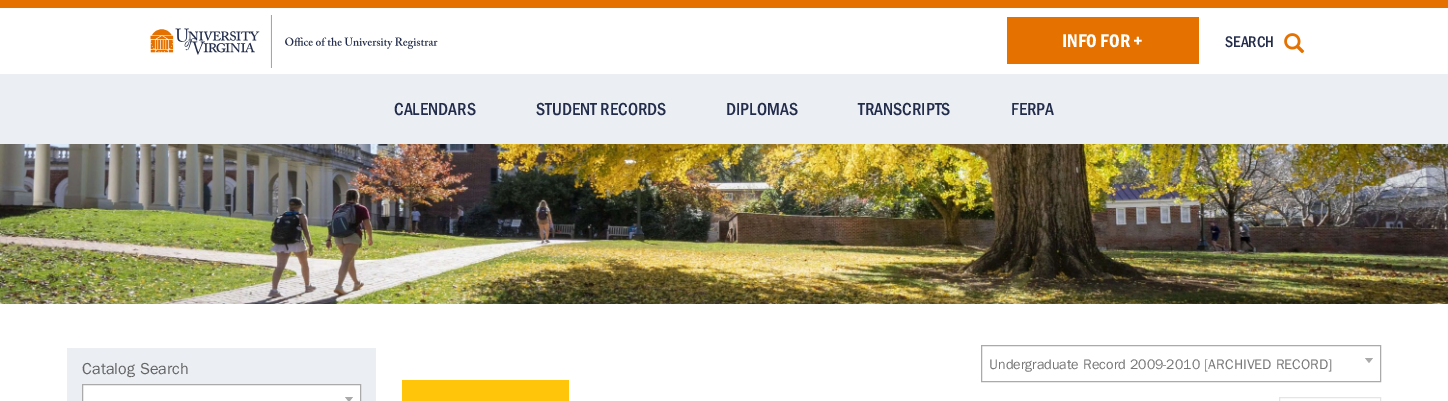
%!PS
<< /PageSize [1448 401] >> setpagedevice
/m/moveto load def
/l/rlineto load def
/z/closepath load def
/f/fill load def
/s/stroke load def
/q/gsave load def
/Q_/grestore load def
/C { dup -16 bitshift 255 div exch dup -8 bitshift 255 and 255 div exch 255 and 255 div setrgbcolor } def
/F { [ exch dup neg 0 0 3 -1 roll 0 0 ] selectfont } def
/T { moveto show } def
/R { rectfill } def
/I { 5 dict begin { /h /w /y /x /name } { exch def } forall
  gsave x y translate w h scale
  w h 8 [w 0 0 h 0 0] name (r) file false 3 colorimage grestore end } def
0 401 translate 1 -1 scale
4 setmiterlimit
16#FFFFFF C
0 0 1448 401 R
16#E57200 C
0 0 1448 8 R
(1.rgb) 150 15 288 53 I
1007 17 192 47 R
/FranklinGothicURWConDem-Regular 19 F
16#FFFFFF C
(INFO FOR +) 1062 47 T
/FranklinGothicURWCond-Medium 16 F
16#232D4B C
(SEARCH) 1225 47 T
(2.rgb) 1284 33 21 21 I
16#EBEEF3 C
0 74 1448 70 R
/FranklinGothicURWCond-Medium 18 F
16#232D4B C
(CALENDARS) 394 115 T
(STUDENT RECORDS) 536 115 T
(DIPLOMAS) 726 115 T
(TRANSCRIPTS) 858 115 T
(FERPA) 1011 115 T
(3.rgb) 0 144 1448 160 I
16#EBEEF3 C
67 348 309 53 R
/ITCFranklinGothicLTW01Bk-Regular 16 F
16#666666 C
(Catalog Search) 82 374 T
16#FFFFFF C
82.5 384.5 m 278 0 l 0 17 l -278 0 l z q f Q_
16#AAAAAA C
s
345 397 m 8 0 l -4 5 l z f
16#FFC50A C
402 380 167 21 R
16#E5E5E5 C
1279.5 397.5 101 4 rectstroke
16#AAAAAA C
981.5 345.5 399 36 rectstroke
/ITCFranklinGothicLTW01Bk-Regular 14 F
16#777777 C
(Undergraduate Record 2009-2010 [ARCHIVED RECORD]) 989 369 T
16#AAAAAA C
1365 358 m 8 0 l -4 5 l z f
showpage
